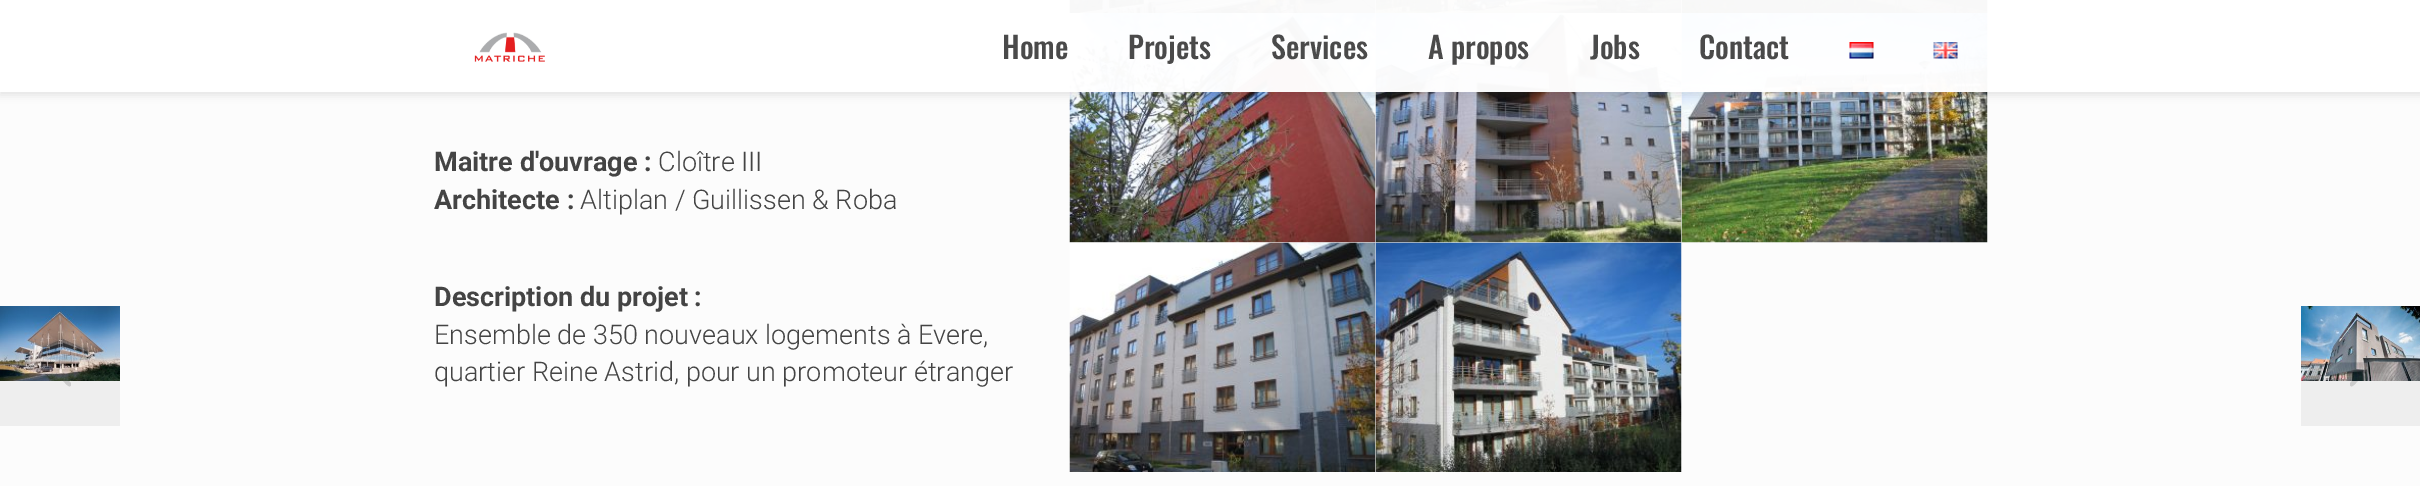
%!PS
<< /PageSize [2420 486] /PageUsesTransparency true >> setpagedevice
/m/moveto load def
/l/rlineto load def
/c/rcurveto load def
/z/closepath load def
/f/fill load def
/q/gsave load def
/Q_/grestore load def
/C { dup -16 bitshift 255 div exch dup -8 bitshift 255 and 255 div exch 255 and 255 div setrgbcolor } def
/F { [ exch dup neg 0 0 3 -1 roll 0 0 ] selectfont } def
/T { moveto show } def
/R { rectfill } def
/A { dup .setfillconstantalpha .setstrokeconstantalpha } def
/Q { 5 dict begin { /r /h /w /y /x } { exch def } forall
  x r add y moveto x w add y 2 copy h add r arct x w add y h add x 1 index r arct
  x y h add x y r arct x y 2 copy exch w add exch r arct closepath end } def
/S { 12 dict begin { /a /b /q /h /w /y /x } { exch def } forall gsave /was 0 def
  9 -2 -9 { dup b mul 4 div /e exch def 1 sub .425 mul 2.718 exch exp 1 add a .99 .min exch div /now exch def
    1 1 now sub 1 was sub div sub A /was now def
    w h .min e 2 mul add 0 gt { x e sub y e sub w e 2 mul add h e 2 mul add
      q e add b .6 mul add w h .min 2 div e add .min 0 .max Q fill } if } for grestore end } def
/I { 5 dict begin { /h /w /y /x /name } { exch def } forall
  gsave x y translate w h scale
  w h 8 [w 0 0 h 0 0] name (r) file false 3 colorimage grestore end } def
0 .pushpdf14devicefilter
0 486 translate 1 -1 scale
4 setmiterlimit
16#FCFCFC C
0 0 2420 486 R
16#EEEEEE C
0 381 120 45 R
16#CCCCCC C
71 383 m 0 2 l -1 4 -6 -2 -6 -2 c -16 -17 l 0 -1 l 2 -3 20 -20 21 -20 c 5 1 -5 8 -5 9 c -12 12 l z f
(1.rgb) 0 306 120 75 I
(5.rgb) 1069 0 307 13 I
(6.rgb) 1375 0 307 13 I
(7.rgb) 1681 0 307 13 I
(8.rgb) 1069 13 307 230 I
(9.rgb) 1375 13 307 230 I
(10.rgb) 1681 13 307 230 I
q
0 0 m 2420 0 l 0 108 l -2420 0 l z 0 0 m 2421 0 l 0 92 l -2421 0 l z eoclip newpath
16#000000 C
0 3 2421 92 0 4 .1 S
Q_
0.97 A
16#FFFFFF C
0 0 2420 92 R
1 A
(2.rgb) 464 28 92 34 I
/Oswald-Medium 30 F
16#4A4A4A C
(Home) 1002 59 T
(Projets) 1128 59 T
(Services) 1271 59 T
(A propos) 1428 59 T
(Jobs) 1590 59 T
(Contact) 1699 59 T
(3.rgb) 1849 42 25 17 I
(4.rgb) 1933 42 25 17 I
/Roboto-Bold 27 F
16#444444 C
(Maitre d'ouvrage :) 434 171 T
/Roboto-Light 27 F
(Cloître III) 658 171 T
/Roboto-Bold 27 F
(Architecte :) 434 209 T
/Roboto-Light 27 F
(Altiplan / Guillissen & Roba) 580 209 T
/Roboto-Bold 27 F
(Description du projet :) 434 306 T
/Roboto-Light 27 F
(Ensemble de 350 nouveaux logements à Evere,) 434 344 T
(quartier Reine Astrid, pour un promoteur étranger) 434 381 T
(11.rgb) 1069 242 307 230 I
(12.rgb) 1375 242 307 230 I
16#EEEEEE C
2301 381 119 45 R
16#CCCCCC C
2350 383 m 18 -17 l -12 -12 l 0 -1 -10 -8 -5 -9 c 1 0 19 17 21 20 c 0 1 l -16 17 l 0 0 -5 6 -6 2 c z f
(13.rgb) 2301 306 119 75 I
.poppdf14devicefilter showpage
